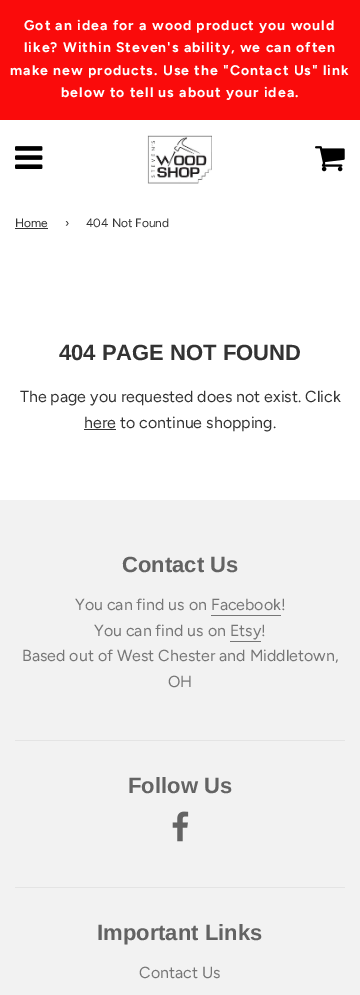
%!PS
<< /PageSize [360 995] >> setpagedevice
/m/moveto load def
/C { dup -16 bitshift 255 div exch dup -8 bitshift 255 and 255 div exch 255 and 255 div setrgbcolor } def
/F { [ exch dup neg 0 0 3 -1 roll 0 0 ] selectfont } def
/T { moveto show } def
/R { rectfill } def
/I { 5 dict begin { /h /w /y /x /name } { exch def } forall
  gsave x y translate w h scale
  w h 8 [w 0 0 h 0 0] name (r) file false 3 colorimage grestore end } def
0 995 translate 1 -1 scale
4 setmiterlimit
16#FFFFFF C
0 0 360 995 R
16#FA0B0B C
0 0 360 120 R
/Figtree-Bold 14 F
16#FFFFFF C
24 30 m 1 0 (Got an idea for a wood product you would) ashow
24 52 m 1 0 (like? Within Steven's ability, we can often) ashow
10 75 m 1 0 (make new products. Use the "Contact Us" link) ashow
61 97 m 1 0 (below to tell us about your idea.) ashow
(1.rgb) 15 146 28 23 I
(2.rgb) 147 135 65 49 I
(3.rgb) 315 146 30 26 I
/Figtree-Regular 12 F
16#333333 C
(Home) 15 227 T
15 228 33 1 R
(›) 65 227 T
(404 Not Found) 86 227 T
/LiberationSans-Bold 22 F
(404 PAGE NOT FOUND) 59 360 T
/Figtree-Regular 16 F
(The page you requested does not exist. Click) 20 402 T
84 429 32 1 R
(here to continue shopping.) 84 428 T
16#F2F2F2 C
0 500 360 495 R
/LiberationSans-Bold 22 F
16#636363 C
(Contact Us) 122 572 T
/Figtree-Regular 16 F
16#767676 C
(You can find us on Facebook!) 75 610 T
211 615 70 1 R
(You can find us on Etsy!) 94 636 T
230 641 31 1 R
(Based out of West Chester and Middletown,) 22 661 T
(OH) 168 687 T
16#E4E4E4 C
15 740 330 1 R
/LiberationSans-Bold 22 F
16#636363 C
(Follow Us) 128 793 T
(4.rgb) 172 811 17 31 I
16#E4E4E4 C
15 887 330 1 R
16#636363 C
(Important Links) 97 940 T
/Figtree-Regular 16 F
16#767676 C
(Contact Us) 139 978 T
showpage
